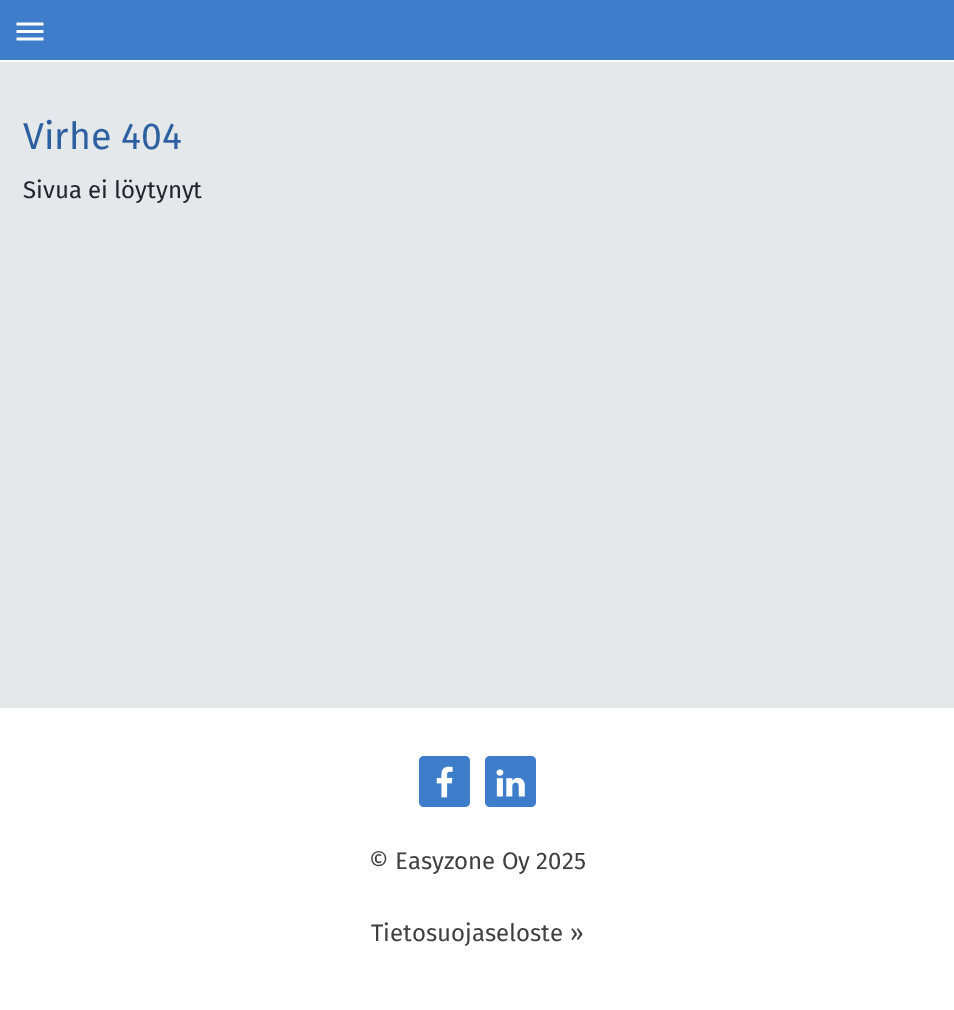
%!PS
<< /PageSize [954 1010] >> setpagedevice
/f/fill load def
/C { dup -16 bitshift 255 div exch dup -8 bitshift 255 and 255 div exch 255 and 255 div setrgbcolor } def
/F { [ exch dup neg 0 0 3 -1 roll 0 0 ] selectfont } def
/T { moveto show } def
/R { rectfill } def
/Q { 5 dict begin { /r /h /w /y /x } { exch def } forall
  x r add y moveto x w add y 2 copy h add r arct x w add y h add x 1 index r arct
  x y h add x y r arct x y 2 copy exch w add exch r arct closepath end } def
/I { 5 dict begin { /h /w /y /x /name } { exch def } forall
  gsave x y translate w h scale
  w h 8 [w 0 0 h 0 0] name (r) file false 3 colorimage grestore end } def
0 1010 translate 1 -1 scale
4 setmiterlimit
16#E5E8EA C
0 0 954 1010 R
16#FFFFFF C
0 60 954 2 R
16#3D7DCA C
0 0 954 60 R
(1.rgb) 16 22 28 19 I
/FiraSans-Regular 37.5 F
16#2C60A0 C
(Virhe 404) 23 149 T
/FiraSans-Regular 24 F
16#212529 C
(Sivua ei löytynyt) 23 198 T
16#FFFFFF C
0 708 954 302 R
16#3D7DCA C
419 756 51 51 5 Q f
(2.rgb) 436 766 17 32 I
485 756 51 51 5 Q f
(3.rgb) 496 769 29 28 I
16#404040 C
(© Easyzone Oy 2025) 369 869 T
(Tietosuojaseloste ») 371 941 T
showpage
